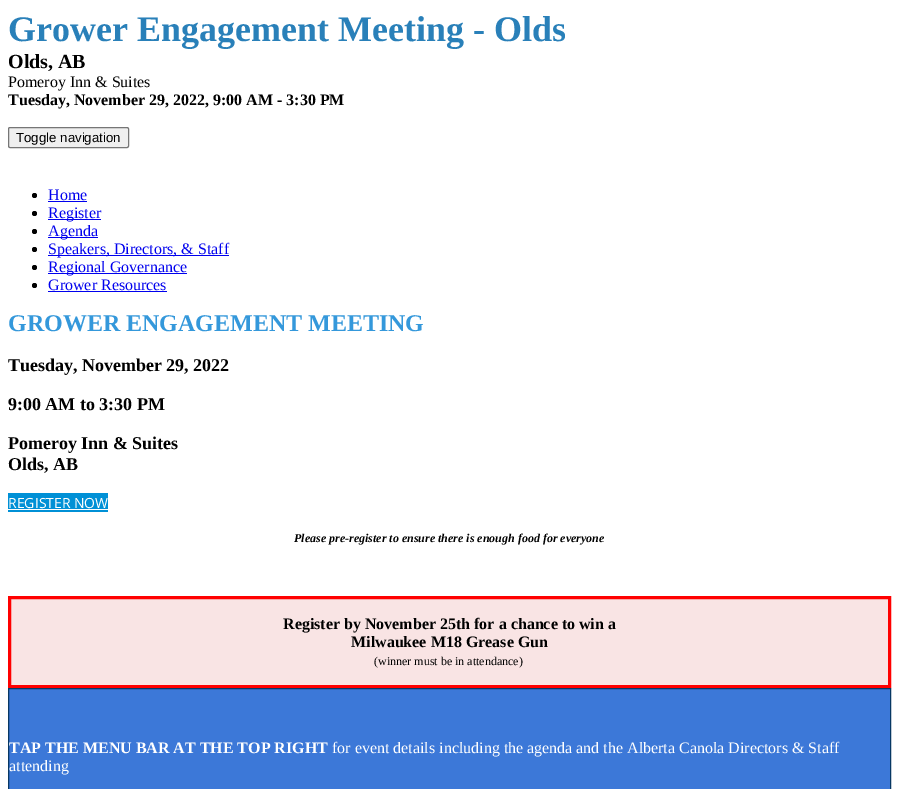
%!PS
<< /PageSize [899 789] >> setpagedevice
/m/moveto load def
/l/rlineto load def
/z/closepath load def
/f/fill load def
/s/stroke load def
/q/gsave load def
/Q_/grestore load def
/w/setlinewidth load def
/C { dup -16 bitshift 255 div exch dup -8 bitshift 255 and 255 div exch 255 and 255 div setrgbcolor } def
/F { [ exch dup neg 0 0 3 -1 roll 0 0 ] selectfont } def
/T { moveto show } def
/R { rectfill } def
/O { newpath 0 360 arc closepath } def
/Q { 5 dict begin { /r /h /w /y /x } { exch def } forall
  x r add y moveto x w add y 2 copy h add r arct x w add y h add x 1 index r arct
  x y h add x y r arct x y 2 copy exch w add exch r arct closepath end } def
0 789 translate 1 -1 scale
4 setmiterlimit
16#FFFFFF C
0 0 899 789 R
/LiberationSerif-Bold 36 F
16#2980B9 C
(Grower Engagement Meeting - Olds) 8 41 T
/LiberationSerif-Bold 20 F
16#000000 C
(Olds, AB) 8 68 T
/LiberationSerif-Regular 16 F
(Pomeroy Inn & Suites) 8 87 T
/LiberationSerif-Bold 16 F
(Tuesday, November 29, 2022, 9:00 AM - 3:30 PM) 8 105 T
16#EFEFEF C
8.5 127.5 120 20 1.5 Q q f Q_
16#767676 C
s
/LiberationSans-Regular 13.25 F
16#000000 C
(Toggle navigation) 16 142 T
34.5 195.5 2.5 O f
/LiberationSerif-Regular 16 F
16#0000EE C
(Home) 48 200 T
48 201 39 1 R
16#000000 C
34.5 213.5 2.5 O f
16#0000EE C
48 219 53 1 R
(Register) 48 218 T
16#000000 C
34.5 231.5 2.5 O f
16#0000EE C
48 237 50 1 R
(Agenda) 48 236 T
16#000000 C
34.5 249.5 2.5 O f
16#0000EE C
48 255 181 1 R
(Speakers, Directors, & Staff) 48 254 T
16#000000 C
34.5 267.5 2.5 O f
16#0000EE C
48 273 139 1 R
(Regional Governance) 48 272 T
16#000000 C
34.5 285.5 2.5 O f
16#0000EE C
(Grower Resources) 48 290 T
48 291 119 1 R
/LiberationSerif-Bold 24 F
16#3498DB C
(GROWER ENGAGEMENT MEETING) 8 331 T
/LiberationSerif-Bold 18 F
16#000000 C
(Tuesday, November 29, 2022) 8 371 T
(9:00 AM to 3:30 PM) 8 410 T
(Pomeroy Inn & Suites) 8 449 T
(Olds, AB) 8 470 T
16#0090D6 C
8 493 100 19 R
/OpenSans-Regular 14 F
16#FFFFFF C
(REGISTER NOW) 8 508 T
8 509 100 1 R
/LiberationSerif-BoldItalic 12 F
16#000000 C
(Please pre-register to ensure there is enough food for everyone) 294 542 T
16#F9E4E4 C
9.5 597.5 m 880 0 l 0 89 l -880 0 l z q f Q_
16#FF0000 C
3 w
s
/LiberationSerif-Bold 16 F
16#000000 C
(Register by November 25th for a chance to win a) 283 629 T
(Milwaukee M18 Grease Gun) 351 647 T
/LiberationSerif-Regular 12 F
(\(winner must be in attendance\)) 374 665 T
16#3C78D8 C
8.5 688.5 m 882 0 l 0 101 l -882 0 l z q f Q_
16#073763 C
1 w
s
/LiberationSerif-Bold 16 F
16#FFFFFF C
(TAP THE MENU BAR AT THE TOP RIGHT) 9 753 T
/LiberationSerif-Regular 16 F
(for event details including the agenda and the Alberta Canola Directors & Staff) 332 753 T
(attending) 9 771 T
showpage
